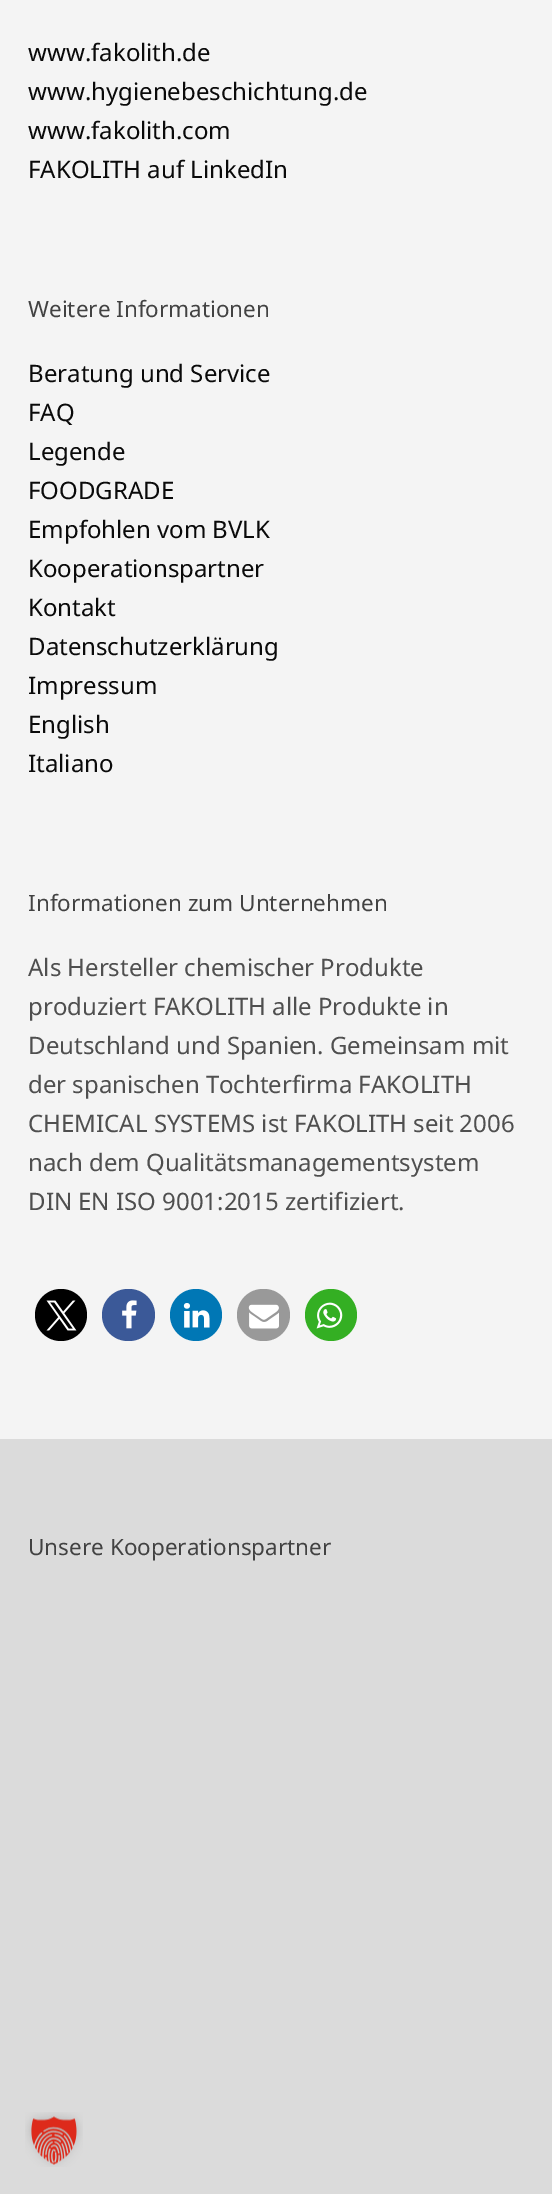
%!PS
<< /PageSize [552 2194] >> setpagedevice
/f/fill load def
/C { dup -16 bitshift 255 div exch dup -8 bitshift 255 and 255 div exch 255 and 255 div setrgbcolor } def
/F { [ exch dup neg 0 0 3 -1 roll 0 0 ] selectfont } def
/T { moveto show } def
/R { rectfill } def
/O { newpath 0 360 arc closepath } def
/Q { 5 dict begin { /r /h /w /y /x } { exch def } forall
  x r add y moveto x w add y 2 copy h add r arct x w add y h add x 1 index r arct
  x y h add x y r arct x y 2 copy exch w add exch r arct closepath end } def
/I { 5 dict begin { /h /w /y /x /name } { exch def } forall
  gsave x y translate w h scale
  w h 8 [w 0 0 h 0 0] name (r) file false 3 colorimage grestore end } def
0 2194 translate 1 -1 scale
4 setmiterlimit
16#F4F4F4 C
0 0 552 2194 R
/NotoSans-Regular 24 F
16#0A0A0A C
(www.fakolith.de) 28 61 T
(www.hygienebeschichtung.de) 28 100 T
(www.fakolith.com) 28 139 T
(FAKOLITH auf LinkedIn) 28 178 T
/NotoSans-Regular 22.5 F
16#424242 C
(Weitere Informationen) 28 317 T
/NotoSans-Regular 24 F
16#0A0A0A C
(Beratung und Service) 28 382 T
(FAQ) 28 421 T
(Legende) 28 460 T
(FOODGRADE) 28 499 T
(Empfohlen vom BVLK) 28 538 T
(Kooperationspartner) 28 577 T
(Kontakt) 28 616 T
(Datenschutzerklärung) 28 655 T
(Impressum) 28 694 T
(English) 28 733 T
(Italiano) 28 772 T
/NotoSans-Regular 22.5 F
16#424242 C
(Informationen zum Unternehmen) 28 911 T
/NotoSans-Regular 24 F
16#4F4F4F C
(Als Hersteller chemischer Produkte) 28 976 T
(produziert FAKOLITH alle Produkte in) 28 1015 T
(Deutschland und Spanien. Gemeinsam mit) 28 1054 T
(der spanischen Tochterfirma FAKOLITH) 28 1093 T
(CHEMICAL SYSTEMS ist FAKOLITH seit 2006) 28 1132 T
(nach dem Qualitätsmanagementsystem) 28 1171 T
(DIN EN ISO 9001:2015 zertifiziert.) 28 1210 T
16#000000 C
61 1315 26 O f
(1.rgb) 46 1300 31 31 I
16#3B5998 C
102 1289 53 52 26 Q f
(2.rgb) 122 1300 15 29 I
16#0077B5 C
196 1315 26 O f
(3.rgb) 183 1303 27 25 I
16#999999 C
237 1289 53 52 26 Q f
(4.rgb) 248 1304 31 25 I
16#34AF23 C
331 1315 26 O f
(5.rgb) 316 1302 27 27 I
16#DBDBDB C
0 1439 552 755 R
/NotoSans-Regular 22.5 F
16#424242 C
(Unsere Kooperationspartner) 28 1555 T
(6.rgb) 25 2112 58 55 I
showpage
